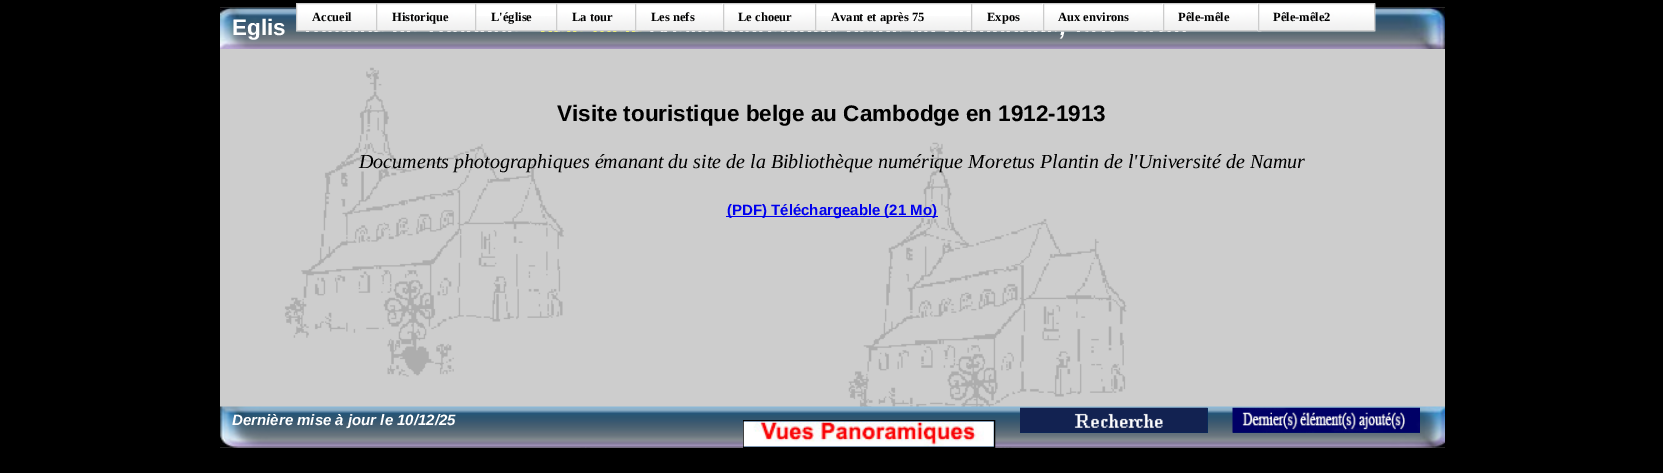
%!PS
<< /PageSize [1663 473] >> setpagedevice
/m/moveto load def
/l/rlineto load def
/z/closepath load def
/f/fill load def
/s/stroke load def
/q/gsave load def
/Q_/grestore load def
/C { dup -16 bitshift 255 div exch dup -8 bitshift 255 and 255 div exch 255 and 255 div setrgbcolor } def
/F { [ exch dup neg 0 0 3 -1 roll 0 0 ] selectfont } def
/T { moveto show } def
/R { rectfill } def
/I { 5 dict begin { /h /w /y /x /name } { exch def } forall
  gsave x y translate w h scale
  w h 8 [w 0 0 h 0 0] name (r) file false 3 colorimage grestore end } def
0 473 translate 1 -1 scale
4 setmiterlimit
16#000000 C
0 0 1663 473 R
(12.rgb) 220 7 1225 441 I
(13.rgb) 220 7 1225 42 I
(1.rgb) 296 4 85 28 I
16#CCCCCC C
296.5 3.5 83 27 rectstroke
/LiberationSerif-Bold 12.5 F
16#000000 C
(Accueil) 312 21 T
(2.rgb) 376 4 104 28 I
16#CCCCCC C
376.5 3.5 102 27 rectstroke
16#000000 C
(Historique) 392 21 T
16#FFFFFF C
476 4 83 12 R
(3.rgb) 475 16 85 16 I
16#CCCCCC C
475.5 3.5 84 27 rectstroke
16#000000 C
(L'église) 491 21 T
(4.rgb) 556 4 84 28 I
16#CCCCCC C
556.5 3.5 82 27 rectstroke
16#000000 C
(La tour) 572 21 T
(5.rgb) 635 4 92 28 I
16#CCCCCC C
635.5 3.5 90 27 rectstroke
16#000000 C
(Les nefs) 651 21 T
(6.rgb) 722 3 98 29 I
16#CCCCCC C
723.5 3.5 95 27 rectstroke
16#000000 C
(Le choeur) 738 21 T
16#FFFFFF C
816 4 158 12 R
(7.rgb) 815 16 160 16 I
16#CCCCCC C
815.5 3.5 159 27 rectstroke
16#000000 C
(Avant et après 75) 831 21 T
(8.rgb) 971 4 76 28 I
16#CCCCCC C
971.5 3.5 74 27 rectstroke
16#000000 C
(Expos) 987 21 T
/LiberationSans-BoldItalic 22.5 F
16#FFFFFF C
(,) 1060 35 T
(9.rgb) 1042 3 125 29 I
16#CCCCCC C
1043.5 3.5 122 27 rectstroke
/LiberationSerif-Bold 12.5 F
16#000000 C
(Aux environs) 1058 21 T
(10.rgb) 1162 3 100 29 I
16#CCCCCC C
1163.5 3.5 97 27 rectstroke
16#000000 C
(Pêle-mêle) 1178 21 T
(11.rgb) 1257 3 119 29 I
16#CCCCCC C
1258.5 3.5 116 27 rectstroke
16#000000 C
(Pêle-mêle2) 1273 21 T
/LiberationSans-Bold 22.5 F
16#FFFFFF C
(Eglis) 232 35 T
16#000000 C
(Visite touristique belge au Cambodge en 1912-1913) 557 121 T
/LiberationSerif-Italic 20 F
(Documents photographiques émanant du site de la Bibliothèque numérique Moretus Plantin de l'Université de Namur) 359 168 T
16#0000EE C
726 216 212 1 R
/LiberationSans-Bold 15 F
(\(PDF\) Téléchargeable \(21 Mo\)) 727 215 T
(14.rgb) 220 406 1225 42 I
/LiberationSans-BoldItalic 15 F
16#FFFFFF C
(Dernière mise à jour le 10/12/25) 232 425 T
16#003366 C
1020 408 188 25 R
(15.rgb) 1020 407 188 26 I
(16.rgb) 1232 407 188 26 I
743.5 420.5 m 251 0 l 0 27 l -251 0 l z q f Q_
16#000000 C
s
(17.rgb) 743 421 251 26 I
showpage
